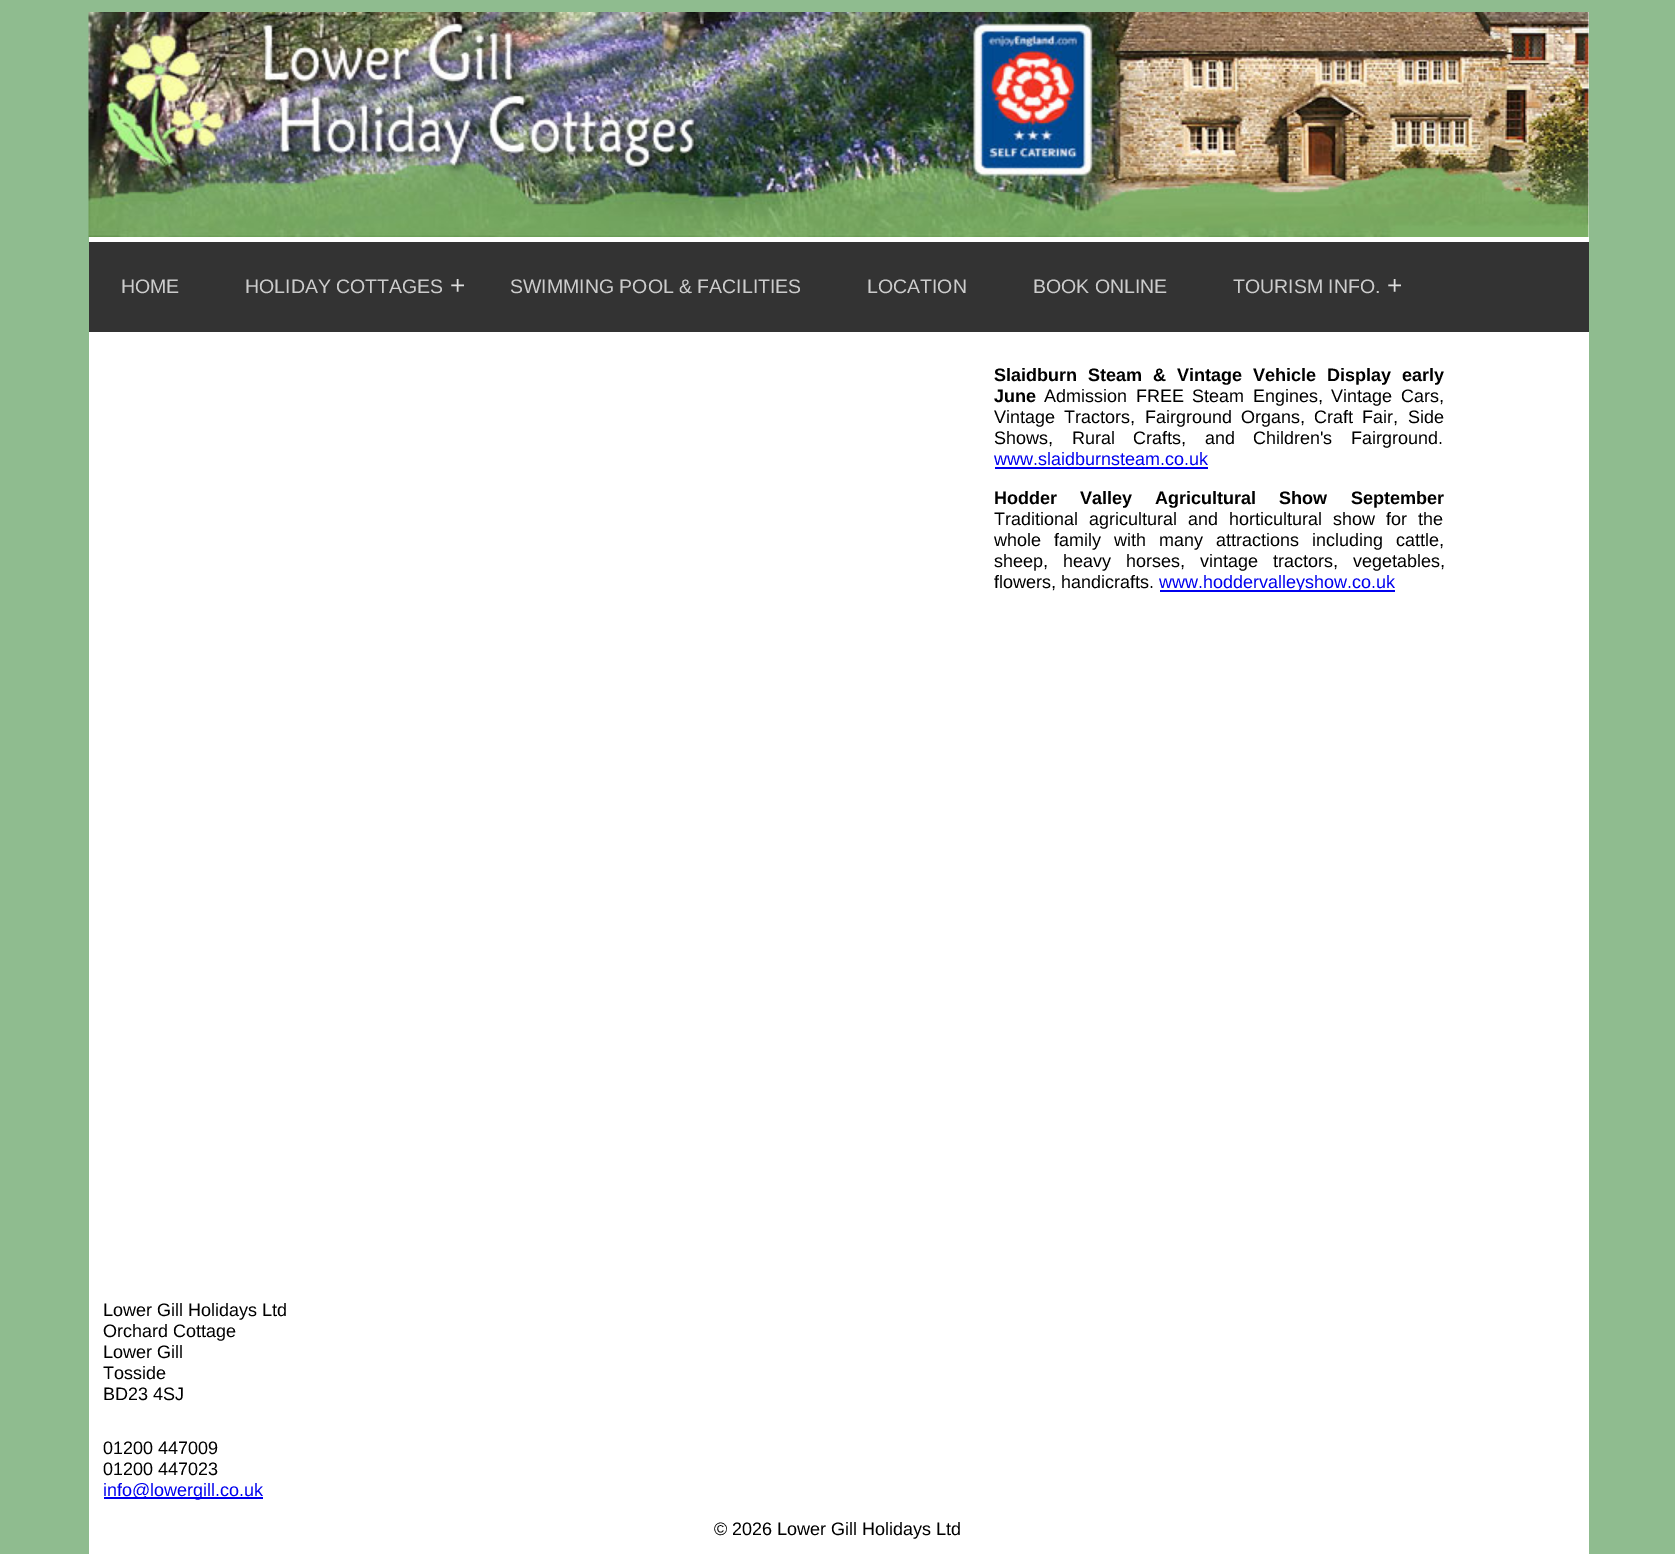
%!PS
<< /PageSize [1675 1554] >> setpagedevice
/m/moveto load def
/C { dup -16 bitshift 255 div exch dup -8 bitshift 255 and 255 div exch 255 and 255 div setrgbcolor } def
/F { [ exch dup neg 0 0 3 -1 roll 0 0 ] selectfont } def
/T { moveto show } def
/R { rectfill } def
/I { 5 dict begin { /h /w /y /x /name } { exch def } forall
  gsave x y translate w h scale
  w h 8 [w 0 0 h 0 0] name (r) file false 3 colorimage grestore end } def
0 1554 translate 1 -1 scale
4 setmiterlimit
16#8FBC8F C
0 0 1675 1554 R
16#FFFFFF C
89 12 1500 1542 R
(1.rgb) 88 12 1501 225 I
16#333333 C
89 242 1500 90 R
/LiberationSans-Regular 19.5 F
16#CCCCCC C
(HOME) 121 293 T
(HOLIDAY COTTAGES) 245 293 T
/LiberationSans-Regular 26 F
16#DEDEDE C
(+) 450 294 T
/LiberationSans-Regular 19.5 F
16#CCCCCC C
(SWIMMING POOL & FACILITIES) 510 293 T
(LOCATION) 867 293 T
(BOOK ONLINE) 1033 293 T
(TOURISM INFO.) 1233 293 T
/LiberationSans-Regular 26 F
16#DEDEDE C
(+) 1387 294 T
/LiberationSans-Bold 18 F
16#000000 C
994 381 m 6 0 32 (Slaidburn Steam & Vintage Vehicle Display early) widthshow
(June) 994 402 T
/LiberationSans-Regular 18 F
1044 402 m 3.5 0 32 (Admission FREE Steam Engines, Vintage Cars,) widthshow
994 423 m 4.25 0 32 (Vintage Tractors, Fairground Organs, Craft Fair, Side) widthshow
994 444 m 13.5 0 32 (Shows, Rural Crafts, and Children's Fairground.) widthshow
16#0000EE C
(www.slaidburnsteam.co.uk) 994 465 T
995 467 213 2 R
/LiberationSans-Bold 18 F
16#000000 C
994 504 m 18 0 32 (Hodder Valley Agricultural Show) widthshow
(September) 1351 504 T
/LiberationSans-Regular 18 F
994 525 m 6 0 32 (Traditional agricultural and horticultural show for the) widthshow
994 546 m 8 0 32 (whole family with many attractions including cattle,) widthshow
994 567 m 10 0 32 (sheep, heavy horses, vintage tractors, vegetables,) widthshow
(flowers, handicrafts.) 994 588 T
16#0000EE C
1160 590 235 2 R
(www.hoddervalleyshow.co.uk) 1159 588 T
16#000000 C
(Lower Gill Holidays Ltd) 103 1316 T
(Orchard Cottage) 103 1337 T
(Lower Gill) 103 1358 T
(Tosside) 103 1379 T
(BD23 4SJ) 103 1400 T
(01200 447009) 103 1454 T
(01200 447023) 103 1475 T
16#0000EE C
104 1497 159 2 R
(info@lowergill.co.uk) 103 1496 T
16#000000 C
(© 2026 Lower Gill Holidays Ltd) 714 1535 T
showpage
